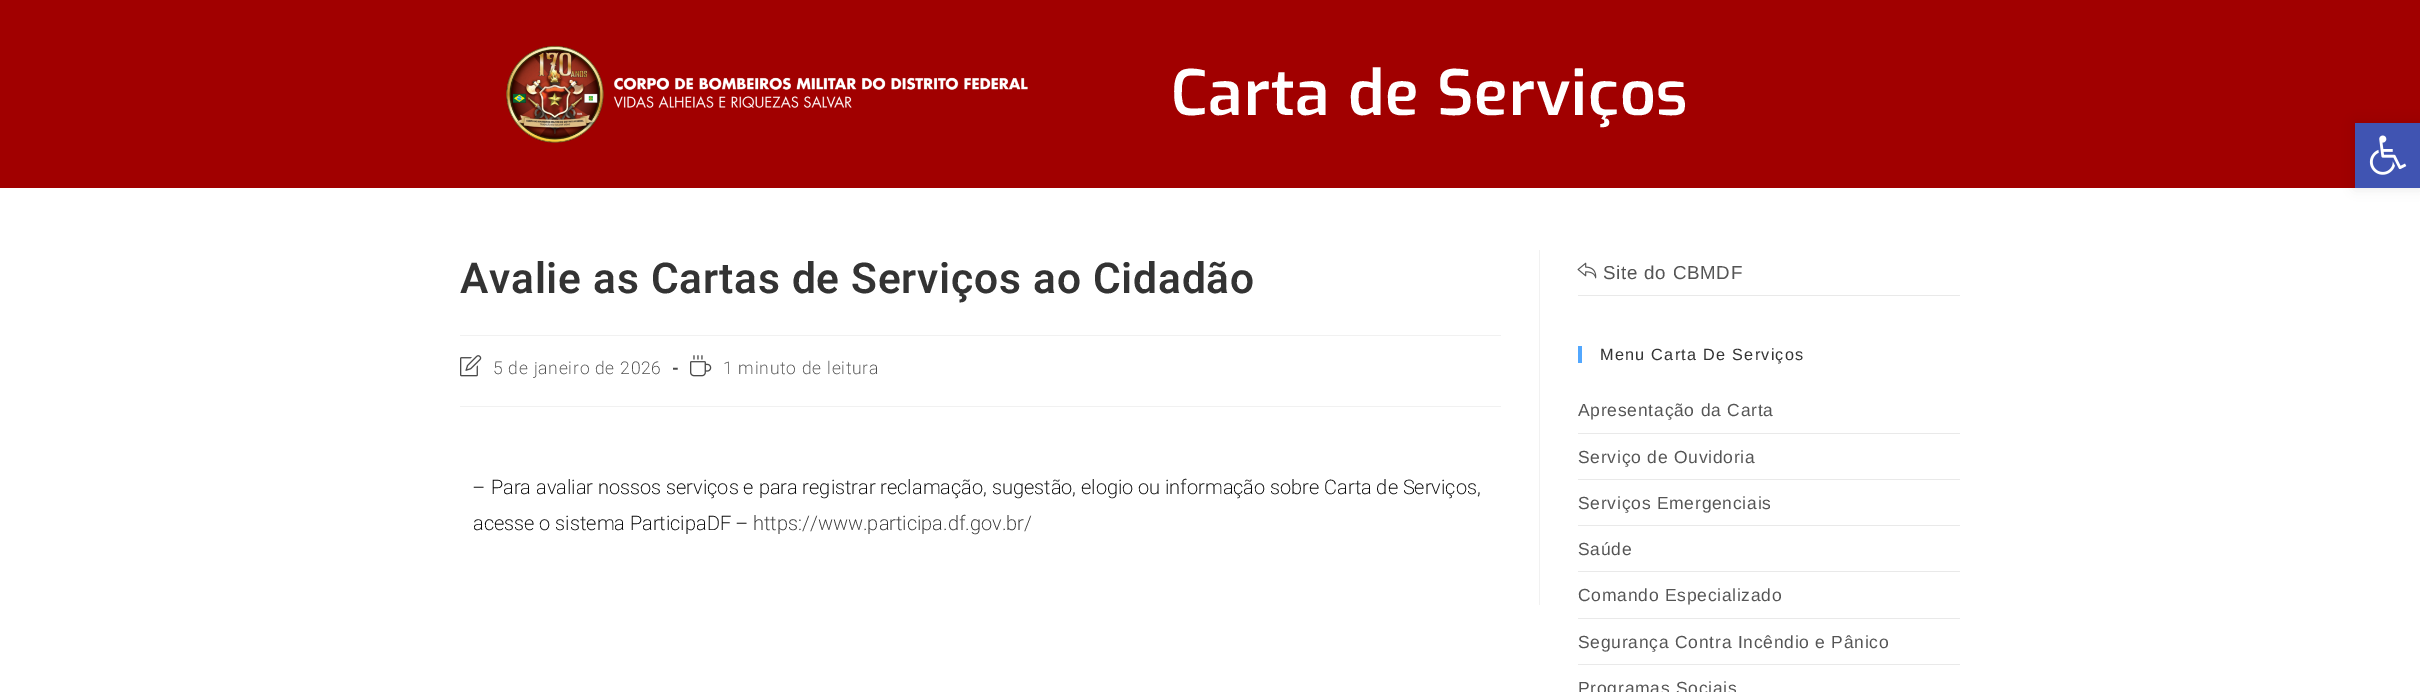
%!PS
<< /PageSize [2420 692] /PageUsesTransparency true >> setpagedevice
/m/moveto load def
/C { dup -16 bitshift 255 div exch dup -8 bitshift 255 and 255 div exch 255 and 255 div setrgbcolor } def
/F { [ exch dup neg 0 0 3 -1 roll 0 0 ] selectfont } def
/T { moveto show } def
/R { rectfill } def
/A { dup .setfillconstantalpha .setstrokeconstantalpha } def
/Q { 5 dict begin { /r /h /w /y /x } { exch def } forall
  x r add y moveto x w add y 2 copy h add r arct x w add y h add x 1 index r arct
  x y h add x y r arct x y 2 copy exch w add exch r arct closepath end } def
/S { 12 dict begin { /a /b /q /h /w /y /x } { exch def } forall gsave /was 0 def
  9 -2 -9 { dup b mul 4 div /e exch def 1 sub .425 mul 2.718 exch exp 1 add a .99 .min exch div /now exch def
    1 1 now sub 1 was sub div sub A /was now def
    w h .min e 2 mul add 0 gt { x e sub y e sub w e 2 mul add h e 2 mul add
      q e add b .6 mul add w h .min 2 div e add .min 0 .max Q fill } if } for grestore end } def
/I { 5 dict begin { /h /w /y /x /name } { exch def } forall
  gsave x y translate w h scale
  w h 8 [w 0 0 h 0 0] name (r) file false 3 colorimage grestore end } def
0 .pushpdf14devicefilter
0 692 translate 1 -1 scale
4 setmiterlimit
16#FFFFFF C
0 0 2420 692 R
16#A10000 C
0 0 2420 188 R
(1.rgb) 506 45 522 98 I
/Exo-SemiBold 62.5 F
16#FFFFFF C
1171 115 m .9 0 (Carta de Serviços) ashow
16#F1F1F1 C
1539 250 1 355 R
460 335 1041 1 R
/Heebo-SemiBold 42.5 F
16#333333 C
460 293 m .75 0 (Avalie as Cartas de Serviços ao Cidadão) ashow
16#F1F1F1 C
460 406 1041 1 R
(2.rgb) 460 355 22 22 I
/Heebo-ExtraLight 17.5 F
16#4A4A4A C
493 374 m .75 0 (5 de janeiro de 2026) ashow
/Heebo-Bold 17.5 F
672 374 m .75 0 (-) ashow
(3.rgb) 690 355 22 22 I
/Heebo-ExtraLight 17.5 F
723 374 m .75 0 (1 minuto de leitura) ashow
/Heebo-ExtraLight 20 F
16#0A0A0A C
(– Para avaliar nossos serviços e para registrar reclamação, sugestão, elogio ou informação sobre Carta de Serviços,) 473 494 T
(acesse o sistema ParticipaDF –) 473 530 T
16#333333 C
(https://www.participa.df.gov.br/) 753 530 T
16#E9E9E9 C
1578 295 382 1 R
(4.rgb) 1577 262 20 17 I
/LiberationSans-Regular 18.75 F
16#555555 C
1603 279 m .75 0 (Site do CBMDF) ashow
16#52A7FE C
1578 346 4 17 R
/LiberationSans-Regular 16.25 F
16#333333 C
1600 360 m 1.25 0 (Menu Carta De Serviços) ashow
16#E9E9E9 C
1578 433 382 1 R
/LiberationSans-Regular 17.5 F
16#555555 C
1578 416 m .75 0 (Apresentação da Carta) ashow
16#E9E9E9 C
1578 479 382 1 R
16#555555 C
1578 463 m .75 0 (Serviço de Ouvidoria) ashow
16#E9E9E9 C
1578 525 382 1 R
16#555555 C
1578 509 m .75 0 (Serviços Emergenciais) ashow
16#E9E9E9 C
1578 571 382 1 R
16#555555 C
1578 555 m .75 0 (Saúde) ashow
16#E9E9E9 C
1578 618 382 1 R
16#555555 C
1578 601 m .75 0 (Comando Especializado) ashow
16#E9E9E9 C
1578 664 382 1 R
16#555555 C
1578 648 m .75 0 (Segurança Contra Incêndio e Pânico) ashow
1578 694 m .75 0 (Programas Sociais) ashow
16#000000 C
2355 123 65 65 0 6 .1 S
16#4054B2 C
2355 123 65 65 R
(5.rgb) 2369 135 38 40 I
.poppdf14devicefilter showpage
